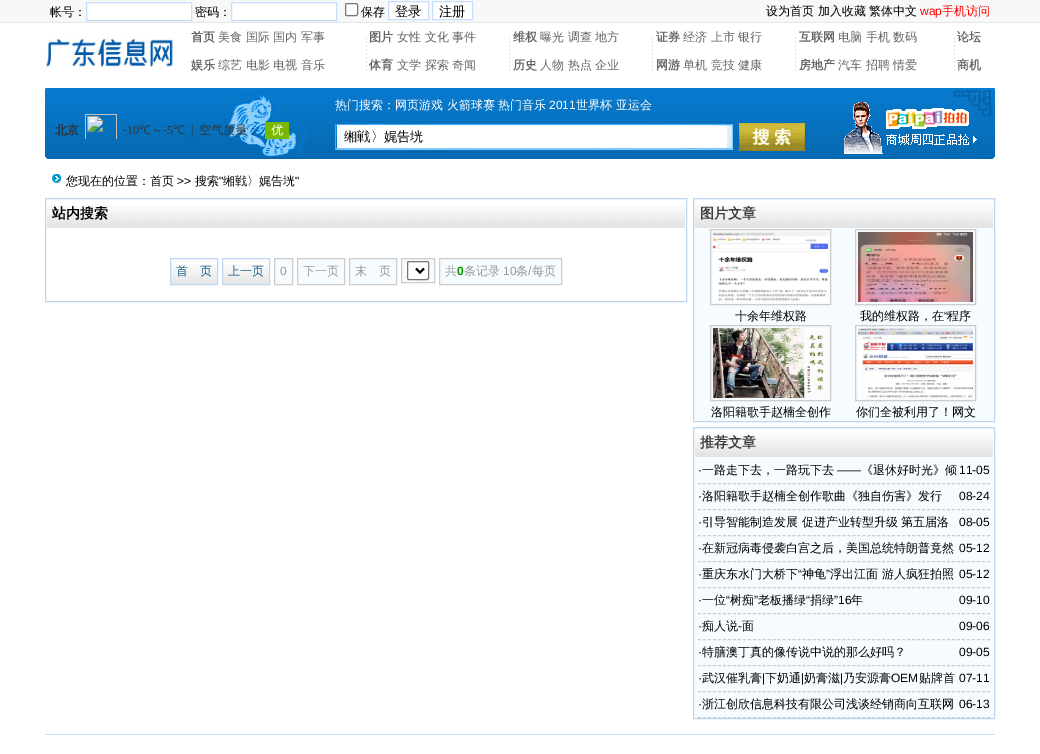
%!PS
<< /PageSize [1040 754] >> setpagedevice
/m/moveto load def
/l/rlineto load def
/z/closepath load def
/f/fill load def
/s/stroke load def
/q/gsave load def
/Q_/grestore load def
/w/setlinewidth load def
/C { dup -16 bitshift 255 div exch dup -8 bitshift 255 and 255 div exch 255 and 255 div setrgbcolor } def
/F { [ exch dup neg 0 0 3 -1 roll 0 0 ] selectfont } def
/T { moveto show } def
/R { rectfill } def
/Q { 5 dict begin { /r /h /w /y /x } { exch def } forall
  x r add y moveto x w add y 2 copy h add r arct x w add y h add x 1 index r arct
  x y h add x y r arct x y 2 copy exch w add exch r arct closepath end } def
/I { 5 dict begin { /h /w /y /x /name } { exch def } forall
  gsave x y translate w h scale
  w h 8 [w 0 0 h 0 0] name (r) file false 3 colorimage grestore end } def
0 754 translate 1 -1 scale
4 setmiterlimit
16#FFFFFF C
0 0 1040 754 R
(1.rgb) 0 0 1040 23 I
/WenQuanYiZenHei-Medium 12 F
16#000000 C
(帐号：) 50 16 T
16#FFFFFF C
86.5 2.5 m 105 0 l 0 18 l -105 0 l z q f Q_
16#C6DFFF C
s
16#000000 C
(密码：) 195 16 T
16#FFFFFF C
231.5 2.5 m 105 0 l 0 18 l -105 0 l z q f Q_
16#C6DFFF C
s
16#FFFFFF C
345.5 3.5 12 12 1.5 Q q f Q_
16#767676 C
s
16#000000 C
(保存) 361 16 T
16#FFFFFF C
388.5 1.5 m 40 0 l 0 18 l -40 0 l z q f Q_
16#C6DFFF C
s
/WenQuanYiZenHei-Medium 13.25 F
16#000000 C
(登录) 395 16 T
16#FFFFFF C
432.5 1.5 m 40 0 l 0 18 l -40 0 l z q f Q_
16#C6DFFF C
s
16#000000 C
(注册) 439 16 T
/WenQuanYiZenHei-Medium 12 F
(设为首页 加入收藏 繁体中文) 766 15 T
/LiberationSans-Regular 12 F
16#FF0000 C
(wap) 920 15 T
/WenQuanYiZenHei-Medium 12 F
(手机访问) 942 15 T
(2.rgb) 45 38 128 29 I
/WenQuanYiZenHei-Bold 12 F
16#666565 C
(首页) 191 41 T
/WenQuanYiZenHei-Medium 12 F
(美食 国际 国内 军事) 218 41 T
(3.rgb) 366 37 1 34 I
/WenQuanYiZenHei-Bold 12 F
(图片) 369 41 T
/WenQuanYiZenHei-Medium 12 F
(女性 文化 事件) 397 41 T
(3.rgb) 509 37 1 34 I
/WenQuanYiZenHei-Bold 12 F
(维权) 513 41 T
/WenQuanYiZenHei-Medium 12 F
(曝光 调查 地方) 540 41 T
(3.rgb) 652 37 1 34 I
/WenQuanYiZenHei-Bold 12 F
(证券) 656 41 T
/WenQuanYiZenHei-Medium 12 F
(经济 上市 银行) 683 41 T
(3.rgb) 795 37 1 34 I
/WenQuanYiZenHei-Bold 12 F
(互联网) 799 41 T
/WenQuanYiZenHei-Medium 12 F
(电脑 手机 数码) 838 41 T
(3.rgb) 954 37 1 34 I
/WenQuanYiZenHei-Bold 12 F
(论坛) 957 41 T
(娱乐) 191 69 T
/WenQuanYiZenHei-Medium 12 F
(综艺 电影 电视 音乐) 218 69 T
/WenQuanYiZenHei-Bold 12 F
(体育) 369 69 T
/WenQuanYiZenHei-Medium 12 F
(文学 探索 奇闻) 397 69 T
/WenQuanYiZenHei-Bold 12 F
(历史) 513 69 T
/WenQuanYiZenHei-Medium 12 F
(人物 热点 企业) 540 69 T
/WenQuanYiZenHei-Bold 12 F
(网游) 656 69 T
/WenQuanYiZenHei-Medium 12 F
(单机 竞技 健康) 683 69 T
/WenQuanYiZenHei-Bold 12 F
(房地产) 799 69 T
/WenQuanYiZenHei-Medium 12 F
(汽车 招聘 情爱) 838 69 T
/WenQuanYiZenHei-Bold 12 F
(商机) 957 69 T
(4.rgb) 45 88 950 72 I
(5.rgb) 55 114 234 25 I
/WenQuanYiZenHei-Medium 12 F
16#FFFFFF C
(热门搜索：网页游戏 火箭球赛 热门音乐) 335 109 T
/LiberationSans-Regular 12 F
(2011) 549 109 T
/WenQuanYiZenHei-Medium 12 F
(世界杯 亚运会) 576 109 T
(6.rgb) 844 102 133 52 I
341 126 386 22 R
/WenQuanYiZenHei-Medium 13.25 F
16#000000 C
(缃戦〉娓告垙) 344 141 T
(7.rgb) 739 123 66 28 I
(8.rgb) 52 174 9 9 I
/WenQuanYiZenHei-Medium 12 F
(您现在的位置：首页) 66 185 T
/LiberationSans-Regular 12 F
(>>) 177 185 T
/WenQuanYiZenHei-Medium 12 F
(搜索) 195 185 T
/LiberationSans-Regular 12 F
(") 219 185 T
/WenQuanYiZenHei-Medium 12 F
(缃戦〉娓告垙) 223 185 T
/LiberationSans-Regular 12 F
(") 295 185 T
16#BDD7F2 C
45.5 198.5 641 103 rectstroke
(9.rgb) 47 205 638 23 I
/WenQuanYiZenHei-Bold 14 F
16#000000 C
(站内搜索) 52 218 T
(10.rgb) 171 264 46 20 I
16#BDD7F2 C
170.5 258.5 47 26 rectstroke
/WenQuanYiZenHei-Medium 12 F
16#135C86 C
(首　页) 176 275 T
(10.rgb) 223 264 46 20 I
16#BDD7F2 C
222.5 258.5 47 26 rectstroke
16#135C86 C
(上一页) 228 275 T
16#F5FBFF C
274.5 258.5 m 18 0 l 0 26 l -18 0 l z q f Q_
16#CCCCCC C
s
/LiberationSans-Regular 12 F
16#999999 C
(0) 280 275 T
16#F5FBFF C
297.5 258.5 m 47 0 l 0 26 l -47 0 l z q f Q_
16#CCCCCC C
s
/WenQuanYiZenHei-Medium 12 F
16#999999 C
(下一页) 303 275 T
16#F5FBFF C
349.5 258.5 m 47 0 l 0 26 l -47 0 l z q f Q_
16#CCCCCC C
s
16#999999 C
(末　页) 355 275 T
16#F5FBFF C
401.5 258.5 m 33 0 l 0 24 l -33 0 l z q f Q_
16#CCCCCC C
s
16#FFFFFF C
407.5 261.5 21 18 1.5 Q q f Q_
16#767676 C
s
16#000000 C
2 w
416 268.5 m 4 4 l 4 -4 l s
16#F5FBFF C
439.5 258.5 m 122 0 l 0 26 l -122 0 l z q f Q_
16#CCCCCC C
1 w
s
16#999999 C
(共) 445 275 T
/LiberationSans-Bold 12 F
16#009900 C
(0) 457 275 T
/WenQuanYiZenHei-Medium 12 F
16#999999 C
(条记录) 464 275 T
/LiberationSans-Regular 12 F
(10) 503 275 T
/WenQuanYiZenHei-Medium 12 F
(条) 516 275 T
/LiberationSans-Regular 12 F
(/) 528 275 T
/WenQuanYiZenHei-Medium 12 F
(每页) 532 275 T
16#F5FBFF C
693.5 198.5 m 301 0 l 0 223 l -301 0 l z q f Q_
16#BDD7F2 C
s
(11.rgb) 695 200 298 28 I
/WenQuanYiZenHei-Bold 14 F
16#3A3C3D C
(图片文章) 700 218 T
16#CCCCCC C
710.5 229.5 120 75 rectstroke
(12.rgb) 713 232 115 70 I
/WenQuanYiZenHei-Medium 12 F
16#000000 C
(十余年维权路) 735 320 T
16#CCCCCC C
855.5 229.5 120 75 rectstroke
(13.rgb) 858 232 115 70 I
16#000000 C
(我的维权路，在) 860 320 T
/LiberationSans-Regular 12 F
(“) 944 320 T
/WenQuanYiZenHei-Medium 12 F
(程序) 947 320 T
16#CCCCCC C
710.5 325.5 120 75 rectstroke
(14.rgb) 713 328 115 70 I
16#000000 C
(洛阳籍歌手赵楠全创作) 711 416 T
16#CCCCCC C
855.5 325.5 120 75 rectstroke
(15.rgb) 858 328 115 70 I
16#000000 C
(你们全被利用了！网文) 856 416 T
16#F5FBFF C
693.5 427.5 m 301 0 l 0 291 l -301 0 l z q f Q_
16#BDD7F2 C
s
(11.rgb) 695 429 298 28 I
/WenQuanYiZenHei-Bold 14 F
16#3A3C3D C
(推荐文章) 700 447 T
16#CCCCCC C
[3 1.98] 0 setdash
698 483.5 m 292 0 l s
/LiberationSans-Regular 12 F
16#000000 C
(·) 698 474 T
/WenQuanYiZenHei-Medium 12 F
(一路走下去，一路玩下去) 702 474 T
/LiberationSans-Regular 12 F
(——) 837 474 T
/WenQuanYiZenHei-Medium 12 F
(《退休好时光》倾) 861 474 T
/LiberationSans-Regular 12 F
(11-05) 959 474 T
16#CCCCCC C
698 509.5 m 292 0 l s
16#000000 C
(·) 698 500 T
/WenQuanYiZenHei-Medium 12 F
(洛阳籍歌手赵楠全创作歌曲《独自伤害》发行) 702 500 T
/LiberationSans-Regular 12 F
(08-24) 959 500 T
16#CCCCCC C
698 535.5 m 292 0 l s
16#000000 C
(·) 698 526 T
/WenQuanYiZenHei-Medium 12 F
(引导智能制造发展 促进产业转型升级 第五届洛) 702 526 T
/LiberationSans-Regular 12 F
(08-05) 959 526 T
16#CCCCCC C
698 561.5 m 292 0 l s
16#000000 C
(·) 698 552 T
/WenQuanYiZenHei-Medium 12 F
(在新冠病毒侵袭白宫之后，美国总统特朗普竟然) 702 552 T
/LiberationSans-Regular 12 F
(05-12) 959 552 T
16#CCCCCC C
698 587.5 m 292 0 l s
16#000000 C
(·) 698 578 T
/WenQuanYiZenHei-Medium 12 F
(重庆东水门大桥下) 702 578 T
/LiberationSans-Regular 12 F
(“) 798 578 T
/WenQuanYiZenHei-Medium 12 F
(神龟) 802 578 T
/LiberationSans-Regular 12 F
(”) 826 578 T
/WenQuanYiZenHei-Medium 12 F
(浮出江面 游人疯狂拍照) 830 578 T
/LiberationSans-Regular 12 F
(05-12) 959 578 T
16#CCCCCC C
698 613.5 m 292 0 l s
16#000000 C
(·) 698 604 T
/WenQuanYiZenHei-Medium 12 F
(一位) 702 604 T
/LiberationSans-Regular 12 F
(“) 726 604 T
/WenQuanYiZenHei-Medium 12 F
(树痴) 730 604 T
/LiberationSans-Regular 12 F
(”) 754 604 T
/WenQuanYiZenHei-Medium 12 F
(老板播绿) 758 604 T
/LiberationSans-Regular 12 F
(“) 806 604 T
/WenQuanYiZenHei-Medium 12 F
(捐绿) 810 604 T
/LiberationSans-Regular 12 F
(”16) 834 604 T
/WenQuanYiZenHei-Medium 12 F
(年) 851 604 T
/LiberationSans-Regular 12 F
(09-10) 959 604 T
16#CCCCCC C
698 639.5 m 292 0 l s
16#000000 C
(·) 698 630 T
/WenQuanYiZenHei-Medium 12 F
(痴人说) 702 630 T
/LiberationSans-Regular 12 F
(-) 738 630 T
/WenQuanYiZenHei-Medium 12 F
(面) 742 630 T
/LiberationSans-Regular 12 F
(09-06) 959 630 T
16#CCCCCC C
698 665.5 m 292 0 l s
16#000000 C
(·) 698 656 T
/WenQuanYiZenHei-Medium 12 F
(特膳澳丁真的像传说中说的那么好吗？) 702 656 T
/LiberationSans-Regular 12 F
(09-05) 959 656 T
16#CCCCCC C
698 691.5 m 292 0 l s
16#000000 C
(·) 698 682 T
/WenQuanYiZenHei-Medium 12 F
(武汉催乳膏) 702 682 T
/LiberationSans-Regular 12 F
(|) 762 682 T
/WenQuanYiZenHei-Medium 12 F
(下奶通) 765 682 T
/LiberationSans-Regular 12 F
(|) 801 682 T
/WenQuanYiZenHei-Medium 12 F
(奶膏滋) 804 682 T
/LiberationSans-Regular 12 F
(|) 840 682 T
/WenQuanYiZenHei-Medium 12 F
(乃安源膏) 843 682 T
/LiberationSans-Regular 12 F
(OEM) 891 682 T
/WenQuanYiZenHei-Medium 12 F
(贴牌首) 919 682 T
/LiberationSans-Regular 12 F
(07-11) 959 682 T
16#CCCCCC C
698 717.5 m 292 0 l s
16#000000 C
(·) 698 708 T
/WenQuanYiZenHei-Medium 12 F
(浙江创欣信息科技有限公司浅谈经销商向互联网) 702 708 T
/LiberationSans-Regular 12 F
(06-13) 959 708 T
16#C6DFFF C
45 734 950 1 R
showpage
